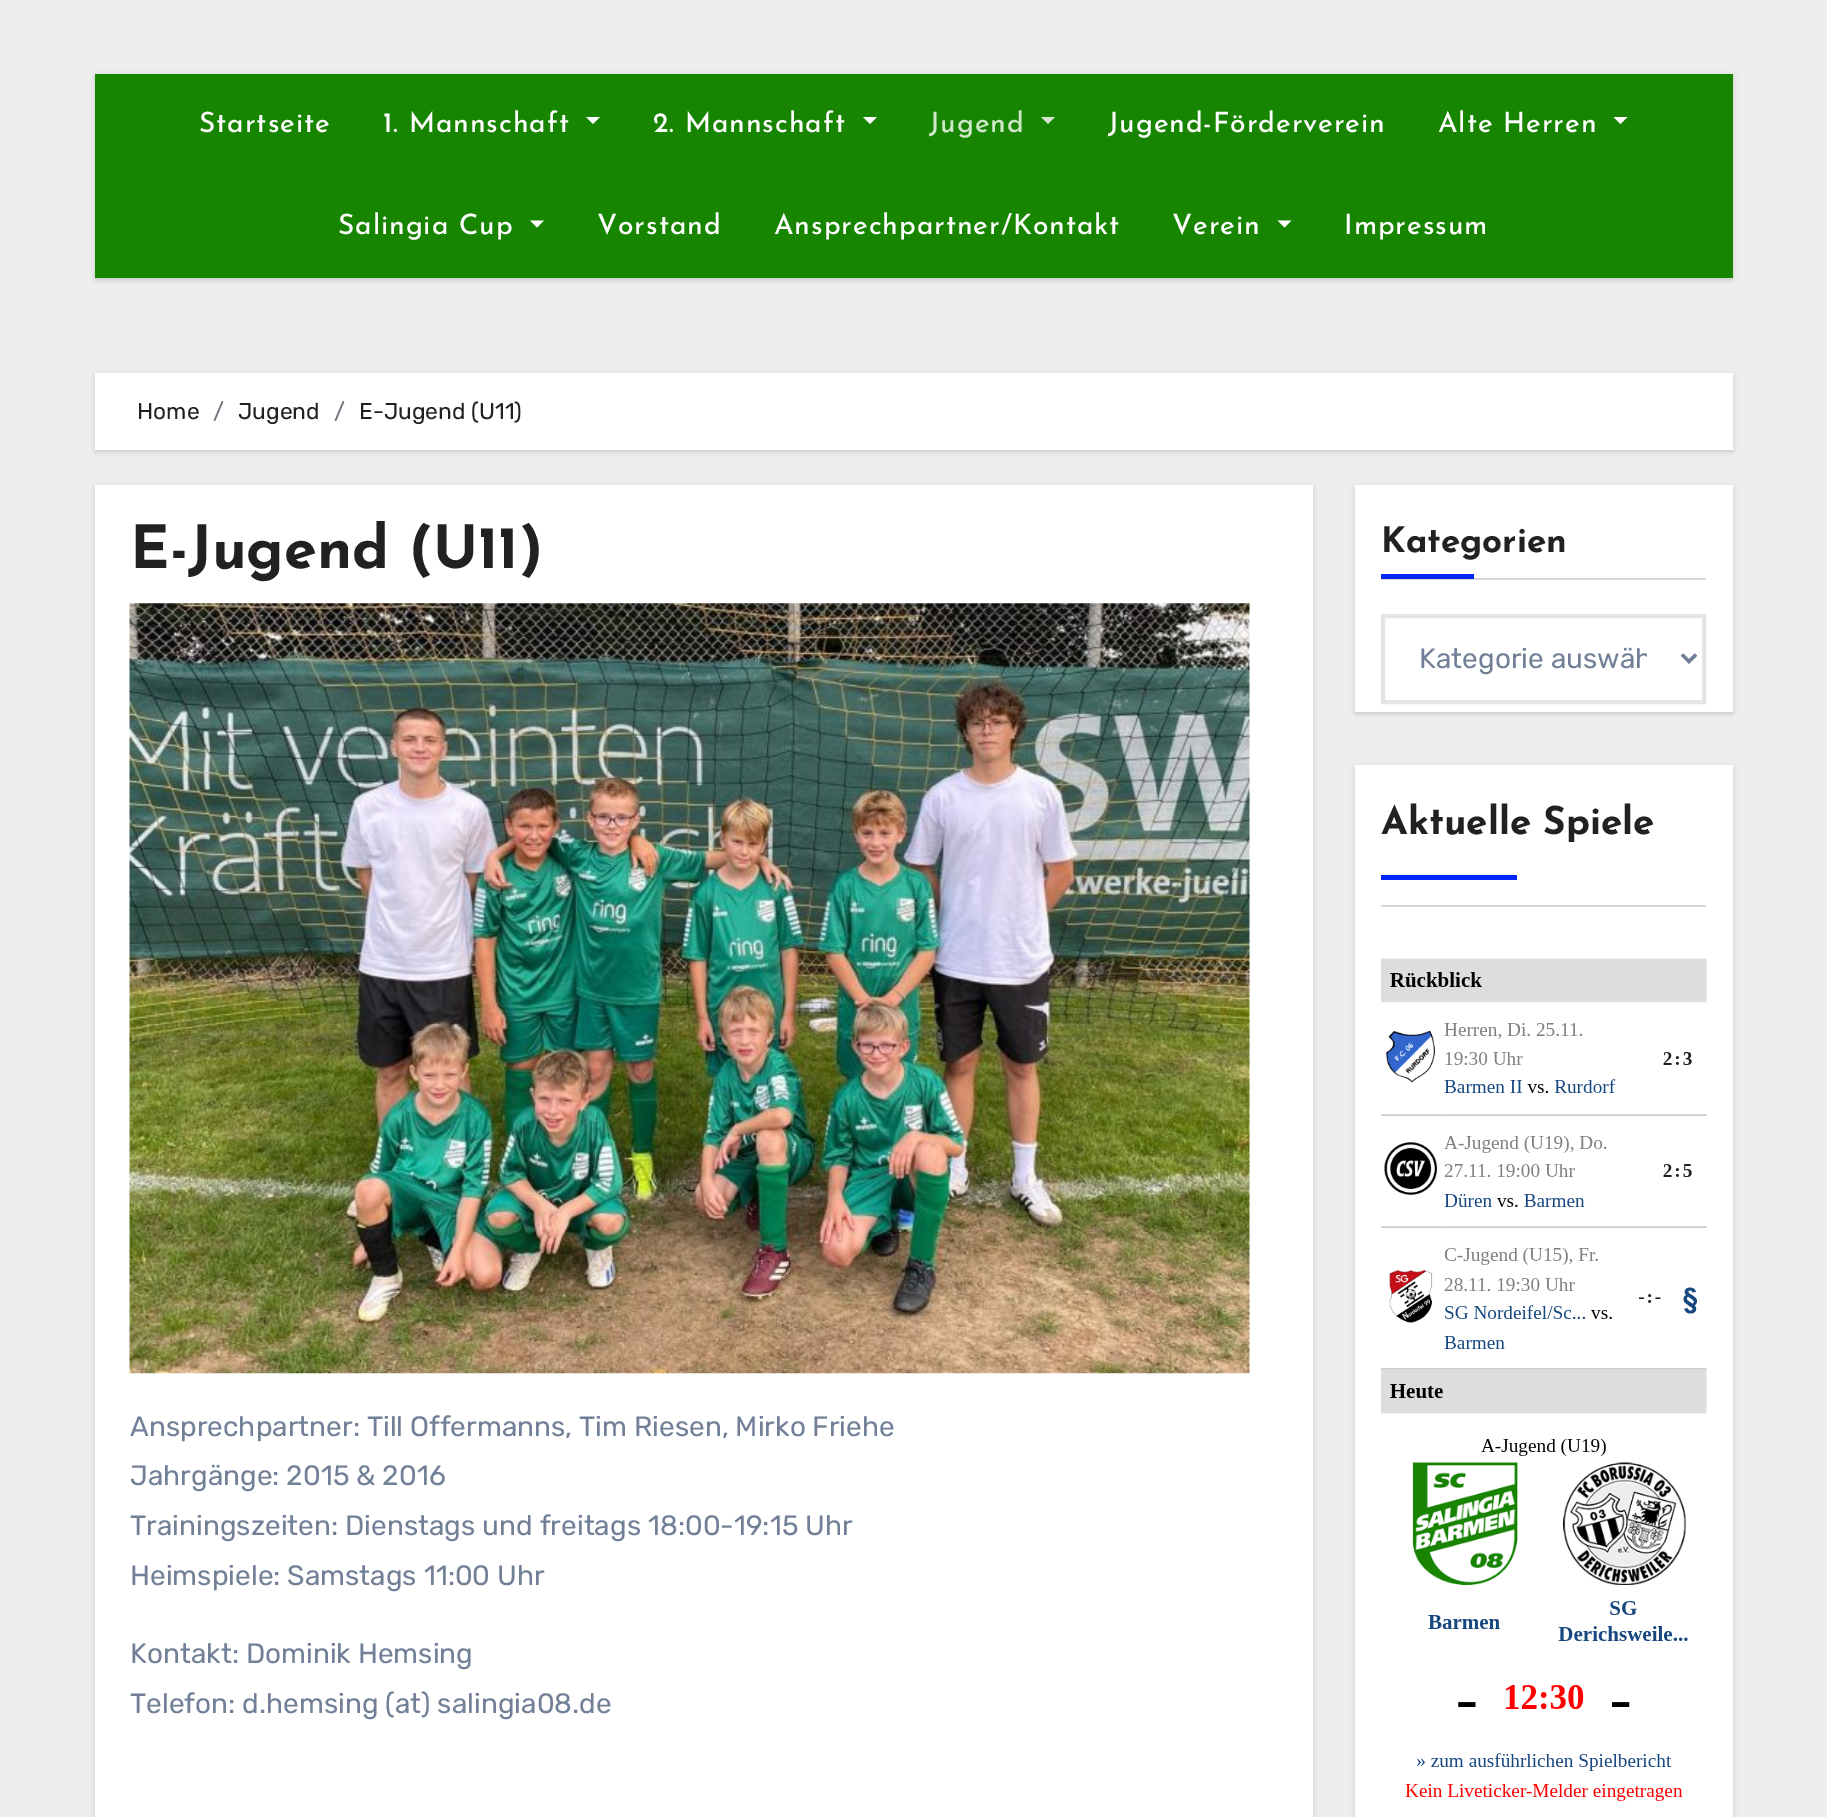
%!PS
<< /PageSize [1827 1817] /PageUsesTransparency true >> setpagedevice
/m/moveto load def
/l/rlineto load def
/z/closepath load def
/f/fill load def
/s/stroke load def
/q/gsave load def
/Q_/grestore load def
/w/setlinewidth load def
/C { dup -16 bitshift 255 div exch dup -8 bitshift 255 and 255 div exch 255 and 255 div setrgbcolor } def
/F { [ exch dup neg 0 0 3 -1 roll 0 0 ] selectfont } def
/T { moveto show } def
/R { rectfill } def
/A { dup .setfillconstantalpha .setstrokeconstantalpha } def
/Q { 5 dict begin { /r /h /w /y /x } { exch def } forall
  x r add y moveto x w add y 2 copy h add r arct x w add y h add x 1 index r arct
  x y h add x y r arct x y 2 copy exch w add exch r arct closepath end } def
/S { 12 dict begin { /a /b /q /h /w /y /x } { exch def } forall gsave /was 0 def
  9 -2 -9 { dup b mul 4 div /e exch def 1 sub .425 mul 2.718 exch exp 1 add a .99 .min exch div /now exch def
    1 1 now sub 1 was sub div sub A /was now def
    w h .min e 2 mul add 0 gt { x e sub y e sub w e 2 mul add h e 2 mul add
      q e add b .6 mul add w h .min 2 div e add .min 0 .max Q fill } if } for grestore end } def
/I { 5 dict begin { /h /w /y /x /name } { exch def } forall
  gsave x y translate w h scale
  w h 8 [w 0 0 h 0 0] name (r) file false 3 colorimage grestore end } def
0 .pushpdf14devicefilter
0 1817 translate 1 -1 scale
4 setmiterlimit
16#EEEEEE C
0 0 1827 1817 R
16#000000 C
95 75 1638 205 0 2.5 .15 S
16#178500 C
95 74 1638 204 R
/JosefinSans-Medium 28 F
16#FFFFFF C
199 132 m .9 0 (Startseite) ashow
383 132 m .9 0 (1. Mannschaft) ashow
586 117 m 14 0 l -7 7 l z f
653 132 m .9 0 (2. Mannschaft) ashow
863 117 m 14 0 l -7 7 l z f
16#D1E7CC C
929 132 m .9 0 (Jugend) ashow
1041 117 m 14 0 l -7 7 l z f
16#FFFFFF C
1108 132 m .9 0 (Jugend-Förderverein) ashow
1438 132 m .9 0 (Alte Herren) ashow
1613.5 117 m 14 0 l -7 7 l z f
338 234 m .9 0 (Salingia Cup) ashow
530 220.5 m 14 0 l -7 7 l z f
597 234 m .9 0 (Vorstand) ashow
774 234 m .9 0 (Ansprechpartner/Kontakt) ashow
1172 234 m .9 0 (Verein) ashow
1277.5 220.5 m 14 0 l -7 7 l z f
1344 234 m .9 0 (Impressum) ashow
16#000000 C
95 375 1638 77 0 2.5 .15 S
16#FFFFFF C
95 373 1638 77 R
/Rubik-Light 22.75 F
16#212121 C
(Home) 137 419 T
16#6C757D C
(/) 213 419 T
16#212121 C
(Jugend) 238 419 T
16#6C757D C
(/) 334 419 T
16#212121 C
(E-Jugend \(U11\)) 359 419 T
16#000000 C
95 487 1218 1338 0 2.5 .15 S
16#FFFFFF C
95 485 1218 1332 R
/JosefinSans-Bold 59.5 F
16#212121 C
(E-Jugend \(U11\)) 130 568 T
(1.rgb) 129 603 1121 771 I
/Rubik-Light 28 F
16#718096 C
(Ansprechpartner: Till Offermanns, Tim Riesen, Mirko Friehe) 130 1436 T
(Jahrgänge: 2015 & 2016) 130 1485 T
(Trainingszeiten: Dienstags und freitags 18:00-19:15 Uhr) 130 1535 T
(Heimspiele: Samstags 11:00 Uhr) 130 1585 T
(Kontakt: Dominik Hemsing) 130 1663 T
(Telefon: d.hemsing \(at\) salingia08.de) 130 1713 T
16#000000 C
1355 487 378 227 0 2.5 .15 S
16#FFFFFF C
1355 485 378 227 R
16#D7D7D7 C
1381 578 325 2 R
/JosefinSans-Bold 35 F
16#212121 C
(Kategorien) 1381 552 T
16#0025FF C
1381 574 93 5 R
16#E5E5E5 C
4 w
1383 616 321 86 rectstroke
16#718096 C
3.5 w
1682 654.5 m 7 7 l 7 -7 l s
q
1419 641 228 36 rectclip
/Rubik-Light 28 F
(Kategorie auswäh) 1419 668 T
Q_
16#000000 C
1355 767 378 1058 0 2.5 .15 S
16#FFFFFF C
1355 765 378 1052 R
16#D7D7D7 C
1381 905 325 2 R
/JosefinSans-Bold 38.5 F
16#212121 C
(Aktuelle Spiele) 1381 834 T
16#0025FF C
1381 875 136 5 R
(2.rgb) 1381 958 326 843 I
.poppdf14devicefilter showpage
